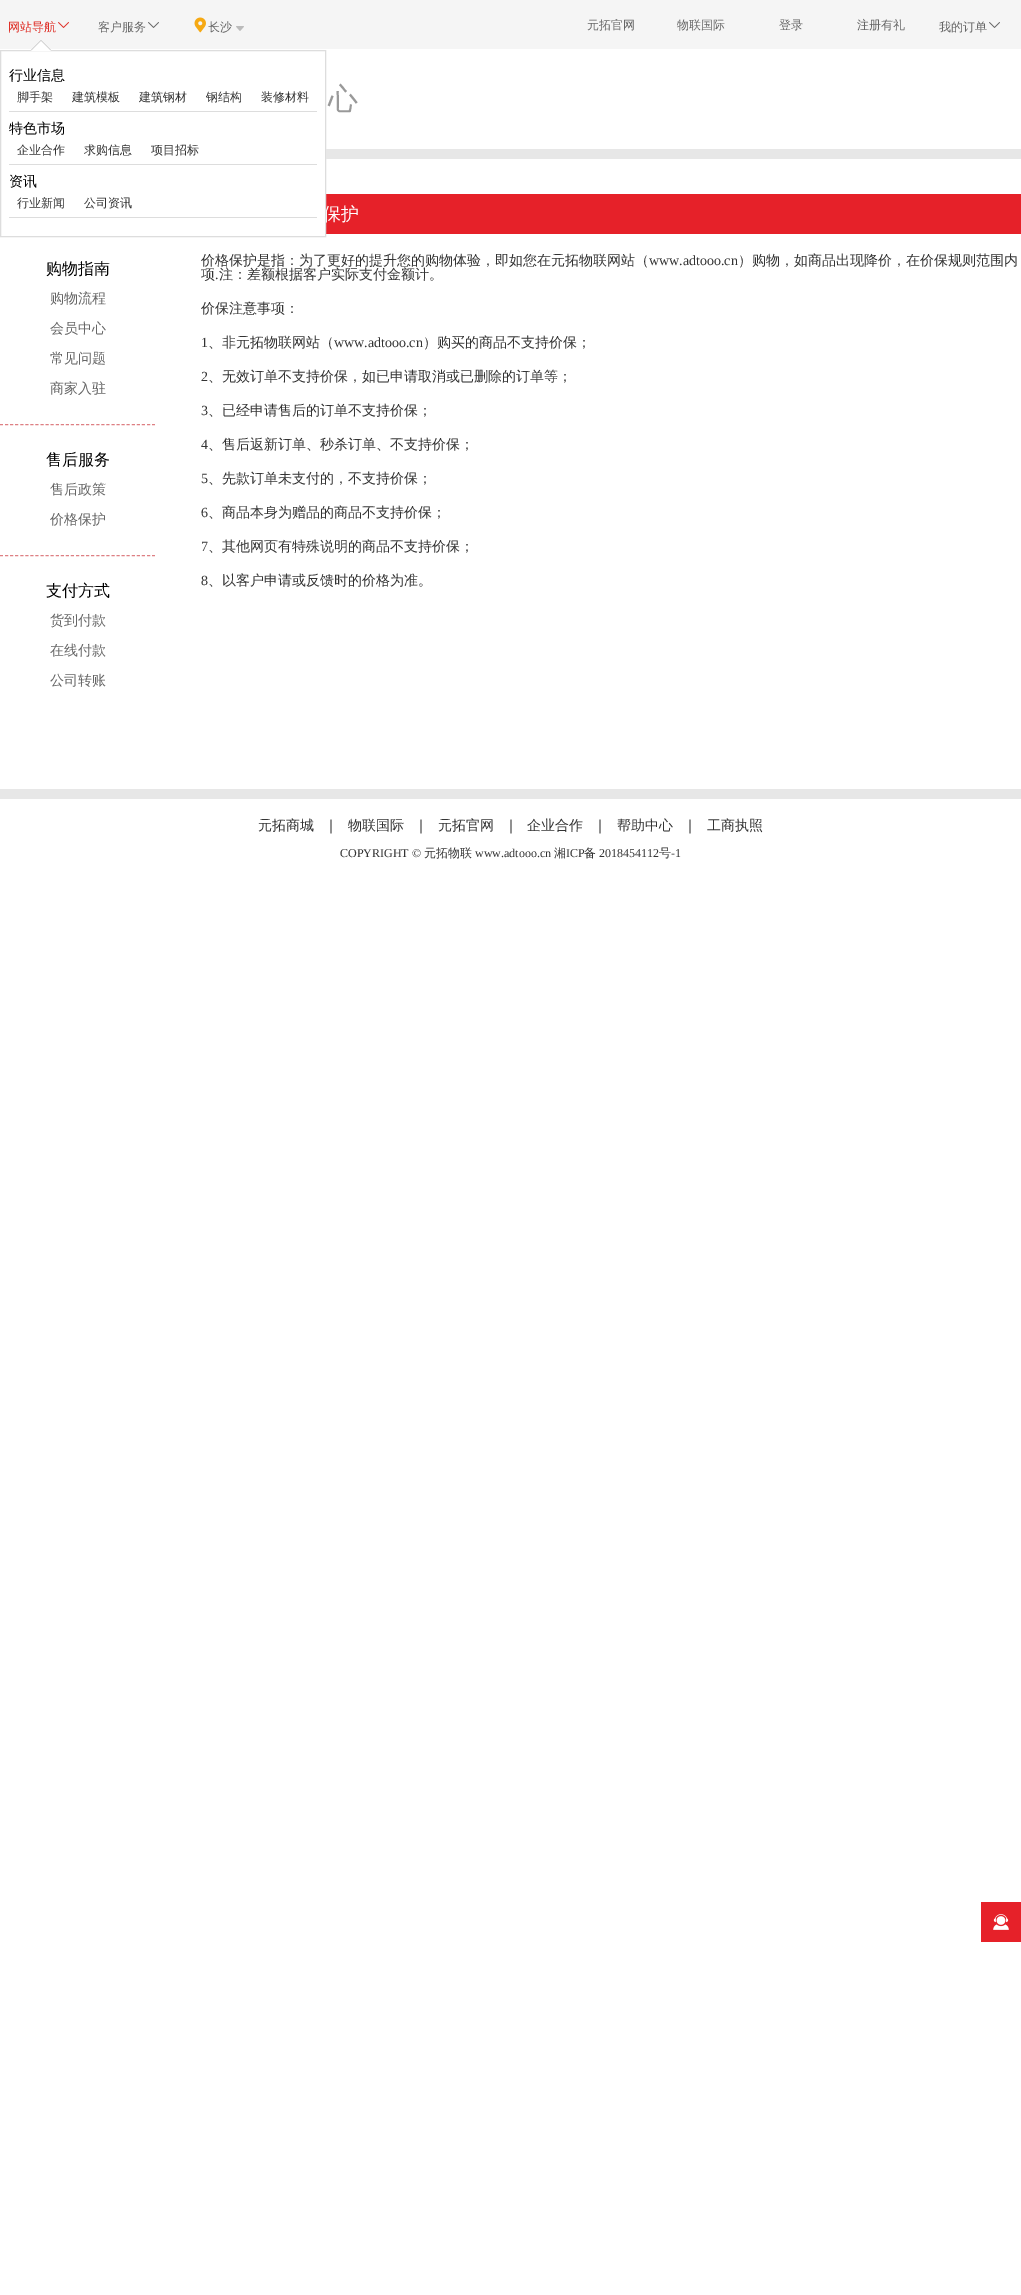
%!PS
<< /PageSize [1021 2295] >> setpagedevice
/m/moveto load def
/l/rlineto load def
/z/closepath load def
/f/fill load def
/s/stroke load def
/C { dup -16 bitshift 255 div exch dup -8 bitshift 255 and 255 div exch 255 and 255 div setrgbcolor } def
/F { [ exch dup neg 0 0 3 -1 roll 0 0 ] selectfont } def
/T { moveto show } def
/R { rectfill } def
/I { 5 dict begin { /h /w /y /x /name } { exch def } forall
  gsave x y translate w h scale
  w h 8 [w 0 0 h 0 0] name (r) file false 3 colorimage grestore end } def
0 2295 translate 1 -1 scale
4 setmiterlimit
16#FFFFFF C
0 0 1021 2295 R
16#F5F5F5 C
0 0 1021 49 R
/WenQuanYiZenHei-Medium 12 F
16#DF3028 C
(网站导航) 8 31 T
(1.rgb) 58 22 11 6 I
16#E62129 C
326 194 695 40 R
/WenQuanYiZenHei-Medium 18 F
16#FFFFFF C
(保护) 323 220 T
16#DDDDDD C
.5 50.5 325 186 rectstroke
16#C4C4C4 C
51 50 m -20 0 l 10 -10 l z f
16#FFFFFF C
51 51 m -20 0 l 10 -10 l z f
/WenQuanYiZenHei-Medium 14 F
16#000000 C
(行业信息) 9 80 T
16#DDDDDD C
9 111 308 1 R
/WenQuanYiZenHei-Medium 12 F
16#333333 C
(脚手架) 17 101 T
(建筑模板) 72 101 T
(建筑钢材) 139 101 T
(钢结构) 206 101 T
(装修材料) 261 101 T
/WenQuanYiZenHei-Medium 14 F
16#000000 C
(特色市场) 9 133 T
16#DDDDDD C
9 164 308 1 R
/WenQuanYiZenHei-Medium 12 F
16#333333 C
(企业合作) 17 154 T
(求购信息) 84 154 T
(项目招标) 151 154 T
/WenQuanYiZenHei-Medium 14 F
16#000000 C
(资讯) 9 186 T
16#DDDDDD C
9 217 308 1 R
/WenQuanYiZenHei-Medium 12 F
16#333333 C
(行业新闻) 17 207 T
(公司资讯) 84 207 T
16#666666 C
(客户服务) 98 31 T
(2.rgb) 148 22 11 6 I
(3.rgb) 194 17 12 16 I
(长沙) 208 31 T
(4.rgb) 236 26 8 5 I
(元拓官网) 587 29 T
(物联国际) 677 29 T
(登录) 779 29 T
(注册有礼) 857 29 T
(我的订单) 939 31 T
(2.rgb) 989 22 11 6 I
16#E7E7E7 C
326 149 695 10 R
/WenQuanYiZenHei-Medium 30 F
16#999999 C
(心) 328 109 T
16#E7E7E7 C
0 789 1021 10 R
16#DE8084 C
[3 2.07] 0 setdash
0 424.5 m 155 0 l s
/WenQuanYiZenHei-Medium 16 F
16#000000 C
(购物指南) 46 274 T
/WenQuanYiZenHei-Medium 14 F
16#666666 C
(购物流程) 50 303 T
(会员中心) 50 333 T
(常见问题) 50 363 T
(商家入驻) 50 393 T
16#DE8084 C
0 555.5 m 155 0 l s
/WenQuanYiZenHei-Medium 16 F
16#000000 C
(售后服务) 46 465 T
/WenQuanYiZenHei-Medium 14 F
16#666666 C
(售后政策) 50 494 T
(价格保护) 50 524 T
/WenQuanYiZenHei-Medium 16 F
16#000000 C
(支付方式) 46 596 T
/WenQuanYiZenHei-Medium 14 F
16#666666 C
(货到付款) 50 625 T
(在线付款) 50 655 T
(公司转账) 50 685 T
16#333333 C
(价格保护是指：为了更好的提升您的购物体验，即如您在元拓物联网站（) 201 265 T
/LiberationSerif-Regular 14 F
(www.adtooo.cn) 649 265 T
/WenQuanYiZenHei-Medium 14 F
(）购物，如商品出现降价，在价保规则范围内) 738 265 T
(项) 201 279 T
/LiberationSerif-Regular 14 F
(.) 215 279 T
/WenQuanYiZenHei-Medium 14 F
(注：差额根据客户实际支付金额计。) 219 279 T
(价保注意事项：) 201 313 T
/LiberationSerif-Regular 14 F
(1) 201 347 T
/WenQuanYiZenHei-Medium 14 F
(、非元拓物联网站（) 208 347 T
/LiberationSerif-Regular 14 F
(www.adtooo.cn) 334 347 T
/WenQuanYiZenHei-Medium 14 F
(）购买的商品不支持价保；) 423 347 T
/LiberationSerif-Regular 14 F
(2) 201 381 T
/WenQuanYiZenHei-Medium 14 F
(、无效订单不支持价保，如已申请取消或已删除的订单等；) 208 381 T
/LiberationSerif-Regular 14 F
(3) 201 415 T
/WenQuanYiZenHei-Medium 14 F
(、已经申请售后的订单不支持价保；) 208 415 T
/LiberationSerif-Regular 14 F
(4) 201 449 T
/WenQuanYiZenHei-Medium 14 F
(、售后返新订单、秒杀订单、不支持价保；) 208 449 T
/LiberationSerif-Regular 14 F
(5) 201 483 T
/WenQuanYiZenHei-Medium 14 F
(、先款订单未支付的，不支持价保；) 208 483 T
/LiberationSerif-Regular 14 F
(6) 201 517 T
/WenQuanYiZenHei-Medium 14 F
(、商品本身为赠品的商品不支持价保；) 208 517 T
/LiberationSerif-Regular 14 F
(7) 201 551 T
/WenQuanYiZenHei-Medium 14 F
(、其他网页有特殊说明的商品不支持价保；) 208 551 T
/LiberationSerif-Regular 14 F
(8) 201 585 T
/WenQuanYiZenHei-Medium 14 F
(、以客户申请或反馈时的价格为准。) 208 585 T
(元拓商城) 258 830 T
(｜) 324 830 T
(物联国际) 348 830 T
(｜) 414 830 T
(元拓官网) 438 830 T
(｜) 504 830 T
(企业合作) 527 830 T
(｜) 593 830 T
(帮助中心) 617 830 T
(｜) 683 830 T
(工商执照) 707 830 T
/LiberationSerif-Regular 12 F
(COPYRIGHT ©) 340 857 T
/WenQuanYiZenHei-Medium 12 F
(元拓物联) 424 857 T
/LiberationSerif-Regular 12 F
(www.adtooo.cn) 475 857 T
/WenQuanYiZenHei-Medium 12 F
(湘) 554 857 T
/LiberationSerif-Regular 12 F
(ICP) 566 857 T
/WenQuanYiZenHei-Medium 12 F
(备) 584 857 T
/LiberationSerif-Regular 12 F
(2018454112) 599 857 T
/WenQuanYiZenHei-Medium 12 F
(号) 659 857 T
/LiberationSerif-Regular 12 F
(-1) 671 857 T
16#E62129 C
981 1902 40 40 R
(5.rgb) 993 1914 16 16 I
showpage
